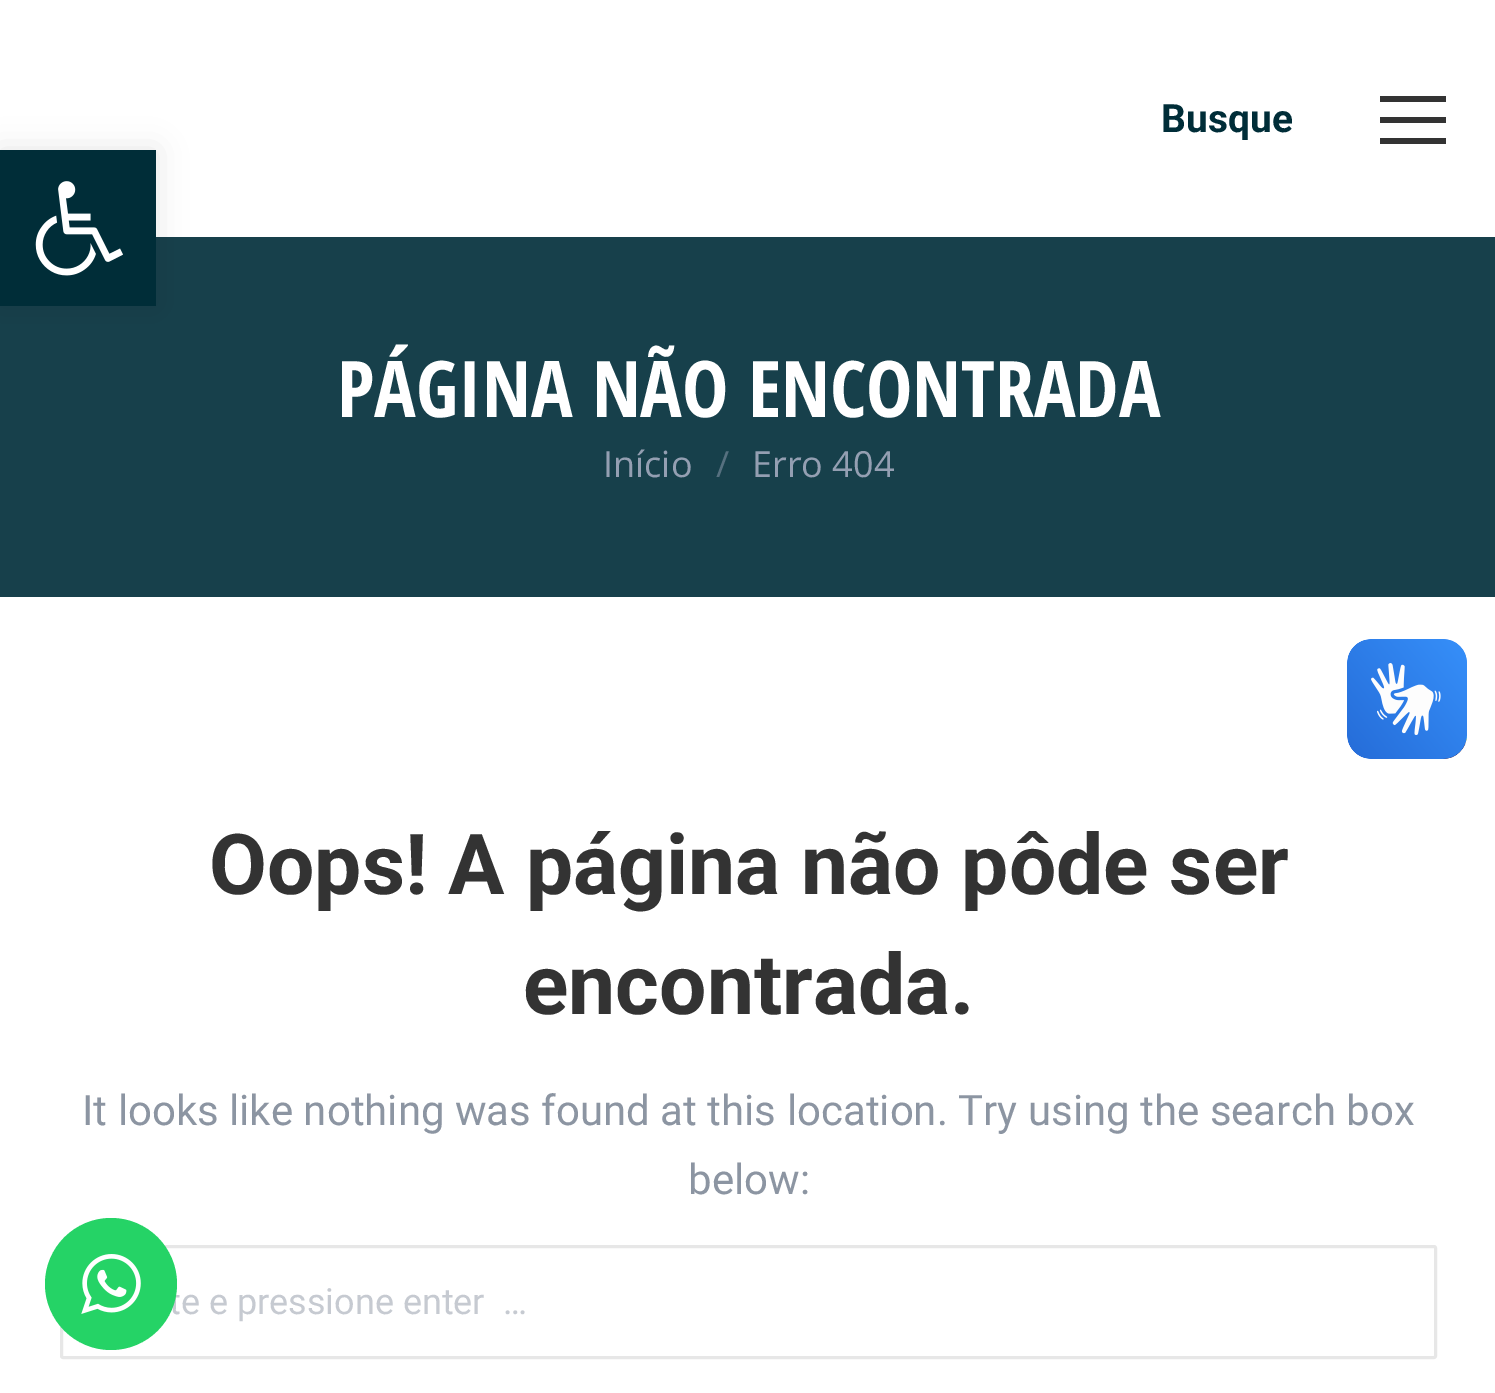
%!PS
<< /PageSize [1495 1393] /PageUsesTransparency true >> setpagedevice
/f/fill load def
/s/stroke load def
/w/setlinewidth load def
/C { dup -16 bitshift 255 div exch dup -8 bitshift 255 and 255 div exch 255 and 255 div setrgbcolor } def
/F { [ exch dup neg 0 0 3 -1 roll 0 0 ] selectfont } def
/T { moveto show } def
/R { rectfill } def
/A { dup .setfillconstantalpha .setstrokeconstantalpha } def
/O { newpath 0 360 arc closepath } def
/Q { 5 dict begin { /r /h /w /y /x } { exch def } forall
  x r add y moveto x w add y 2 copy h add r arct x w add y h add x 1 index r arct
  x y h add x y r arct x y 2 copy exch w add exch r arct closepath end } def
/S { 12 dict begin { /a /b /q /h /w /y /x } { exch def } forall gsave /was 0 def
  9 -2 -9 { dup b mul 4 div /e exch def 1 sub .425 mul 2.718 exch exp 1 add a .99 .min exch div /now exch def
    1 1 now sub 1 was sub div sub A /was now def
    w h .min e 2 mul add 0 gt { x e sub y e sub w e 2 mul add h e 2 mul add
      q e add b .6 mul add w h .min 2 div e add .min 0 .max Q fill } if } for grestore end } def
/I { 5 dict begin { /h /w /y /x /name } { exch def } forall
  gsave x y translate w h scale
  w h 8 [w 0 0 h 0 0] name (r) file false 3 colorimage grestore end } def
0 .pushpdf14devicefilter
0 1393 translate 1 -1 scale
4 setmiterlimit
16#FFFFFF C
0 0 1495 1393 R
16#17404B C
0 237 1495 360 R
16#000000 C
0 150 156 156 0 15 .1 S
16#002D38 C
0 150 156 156 R
(1.rgb) 35 181 88 95 I
/Roboto-Bold 39 F
(Busque) 1161 132 T
16#333333 C
1380 96 66 6 R
1380 117 66 6 R
1380 138 66 6 R
/OpenSansCondensed-Bold 78 F
16#FFFFFF C
(PÁGINA NÃO ENCONTRADA) 337 417 T
/OpenSans-Regular 36 F
16#949FB2 C
(Início) 603 477 T
16#56707F C
(/) 716 477 T
16#949FB2 C
(Erro 404) 752 477 T
/Roboto-Bold 84 F
16#333333 C
(Oops! A página não pôde ser) 209 894 T
(encontrada.) 523 1014 T
/Roboto-Regular 42 F
16#8C95A2 C
(It looks like nothing was found at this location. Try using the search box) 82 1125 T
(below:) 688 1194 T
16#E7E7E7 C
3 w
61.5 1246.5 1374 111 1.5 Q s
/Roboto-Regular 36 F
16#C6CAD1 C
(te e pressione enter  …) 169 1314 T
(2.rgb) 1347 639 120 120 I
(3.rgb) 1347 639 120 120 I
16#25D366 C
111 1284 66 O f
(4.rgb) 81 1254 60 60 I
.poppdf14devicefilter showpage
